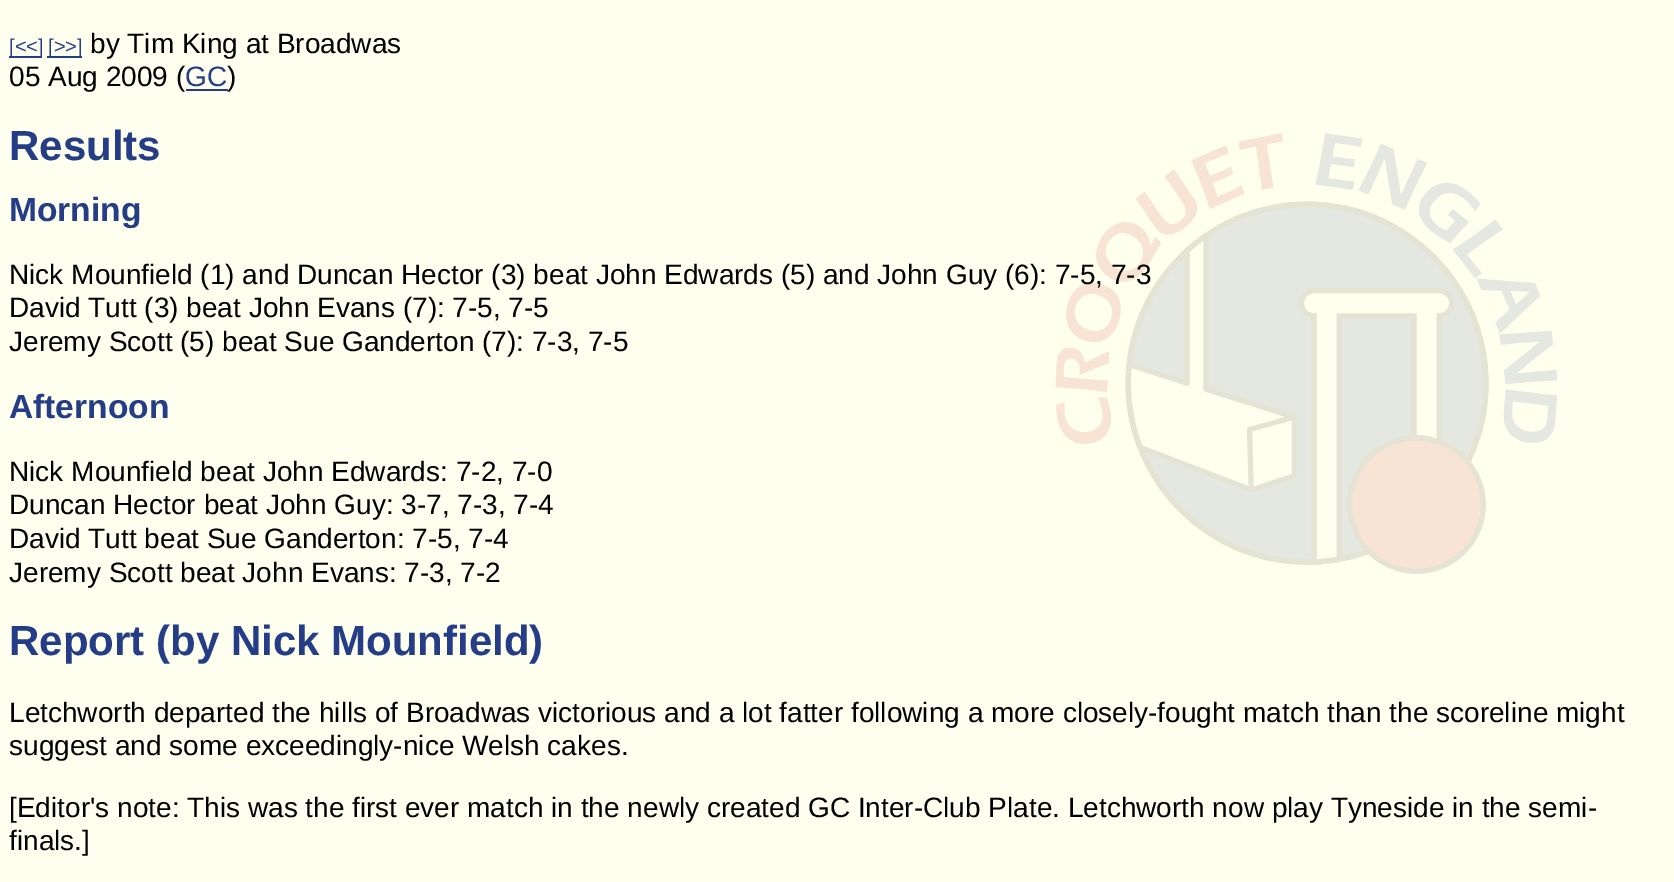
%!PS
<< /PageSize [1674 882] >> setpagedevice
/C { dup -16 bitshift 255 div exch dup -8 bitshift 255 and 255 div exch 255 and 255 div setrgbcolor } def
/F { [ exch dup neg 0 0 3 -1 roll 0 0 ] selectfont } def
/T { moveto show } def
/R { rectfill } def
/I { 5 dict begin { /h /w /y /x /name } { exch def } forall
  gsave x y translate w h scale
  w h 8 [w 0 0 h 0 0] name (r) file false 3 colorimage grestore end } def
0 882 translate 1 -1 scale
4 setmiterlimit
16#FEFFEF C
0 0 1674 882 R
16#253D87 C
9 56 33 2 R
/LiberationSans-Regular 20 F
([<<]) 9 53 T
47 56 35 2 R
([>>]) 48 53 T
/LiberationSans-Regular 28 F
16#000000 C
(by Tim King at Broadwas) 90 53 T
(05 Aug 2009 \() 9 86 T
16#253D87 C
(GC) 185 86 T
186 89 42 2 R
16#000000 C
(\)) 227 86 T
/LiberationSans-Bold 42 F
16#253D87 C
(Results) 9 160 T
/LiberationSans-Bold 33.5 F
(Morning) 9 221 T
(1.rgb) 1055 133 502 441 I
/LiberationSans-Regular 28 F
16#000000 C
(Nick Mounfield \(1\) and Duncan Hector \(3\) beat John Edwards \(5\) and John Guy \(6\): 7-5, 7-3) 9 284 T
(David Tutt \(3\) beat John Evans \(7\): 7-5, 7-5) 9 317 T
(Jeremy Scott \(5\) beat Sue Ganderton \(7\): 7-3, 7-5) 9 351 T
/LiberationSans-Bold 33.5 F
16#253D87 C
(Afternoon) 9 418 T
/LiberationSans-Regular 28 F
16#000000 C
(Nick Mounfield beat John Edwards: 7-2, 7-0) 9 481 T
(Duncan Hector beat John Guy: 3-7, 7-3, 7-4) 9 514 T
(David Tutt beat Sue Ganderton: 7-5, 7-4) 9 548 T
(Jeremy Scott beat John Evans: 7-3, 7-2) 9 582 T
/LiberationSans-Bold 42 F
16#253D87 C
(Report \(by Nick Mounfield\)) 9 655 T
/LiberationSans-Regular 28 F
16#000000 C
(Letchworth departed the hills of Broadwas victorious and a lot fatter following a more closely-fought match than the scoreline might) 9 722 T
(suggest and some exceedingly-nice Welsh cakes.) 9 755 T
([Editor's note: This was the first ever match in the newly created GC Inter-Club Plate. Letchworth now play Tyneside in the semi-) 9 817 T
(finals.]) 9 850 T
showpage
